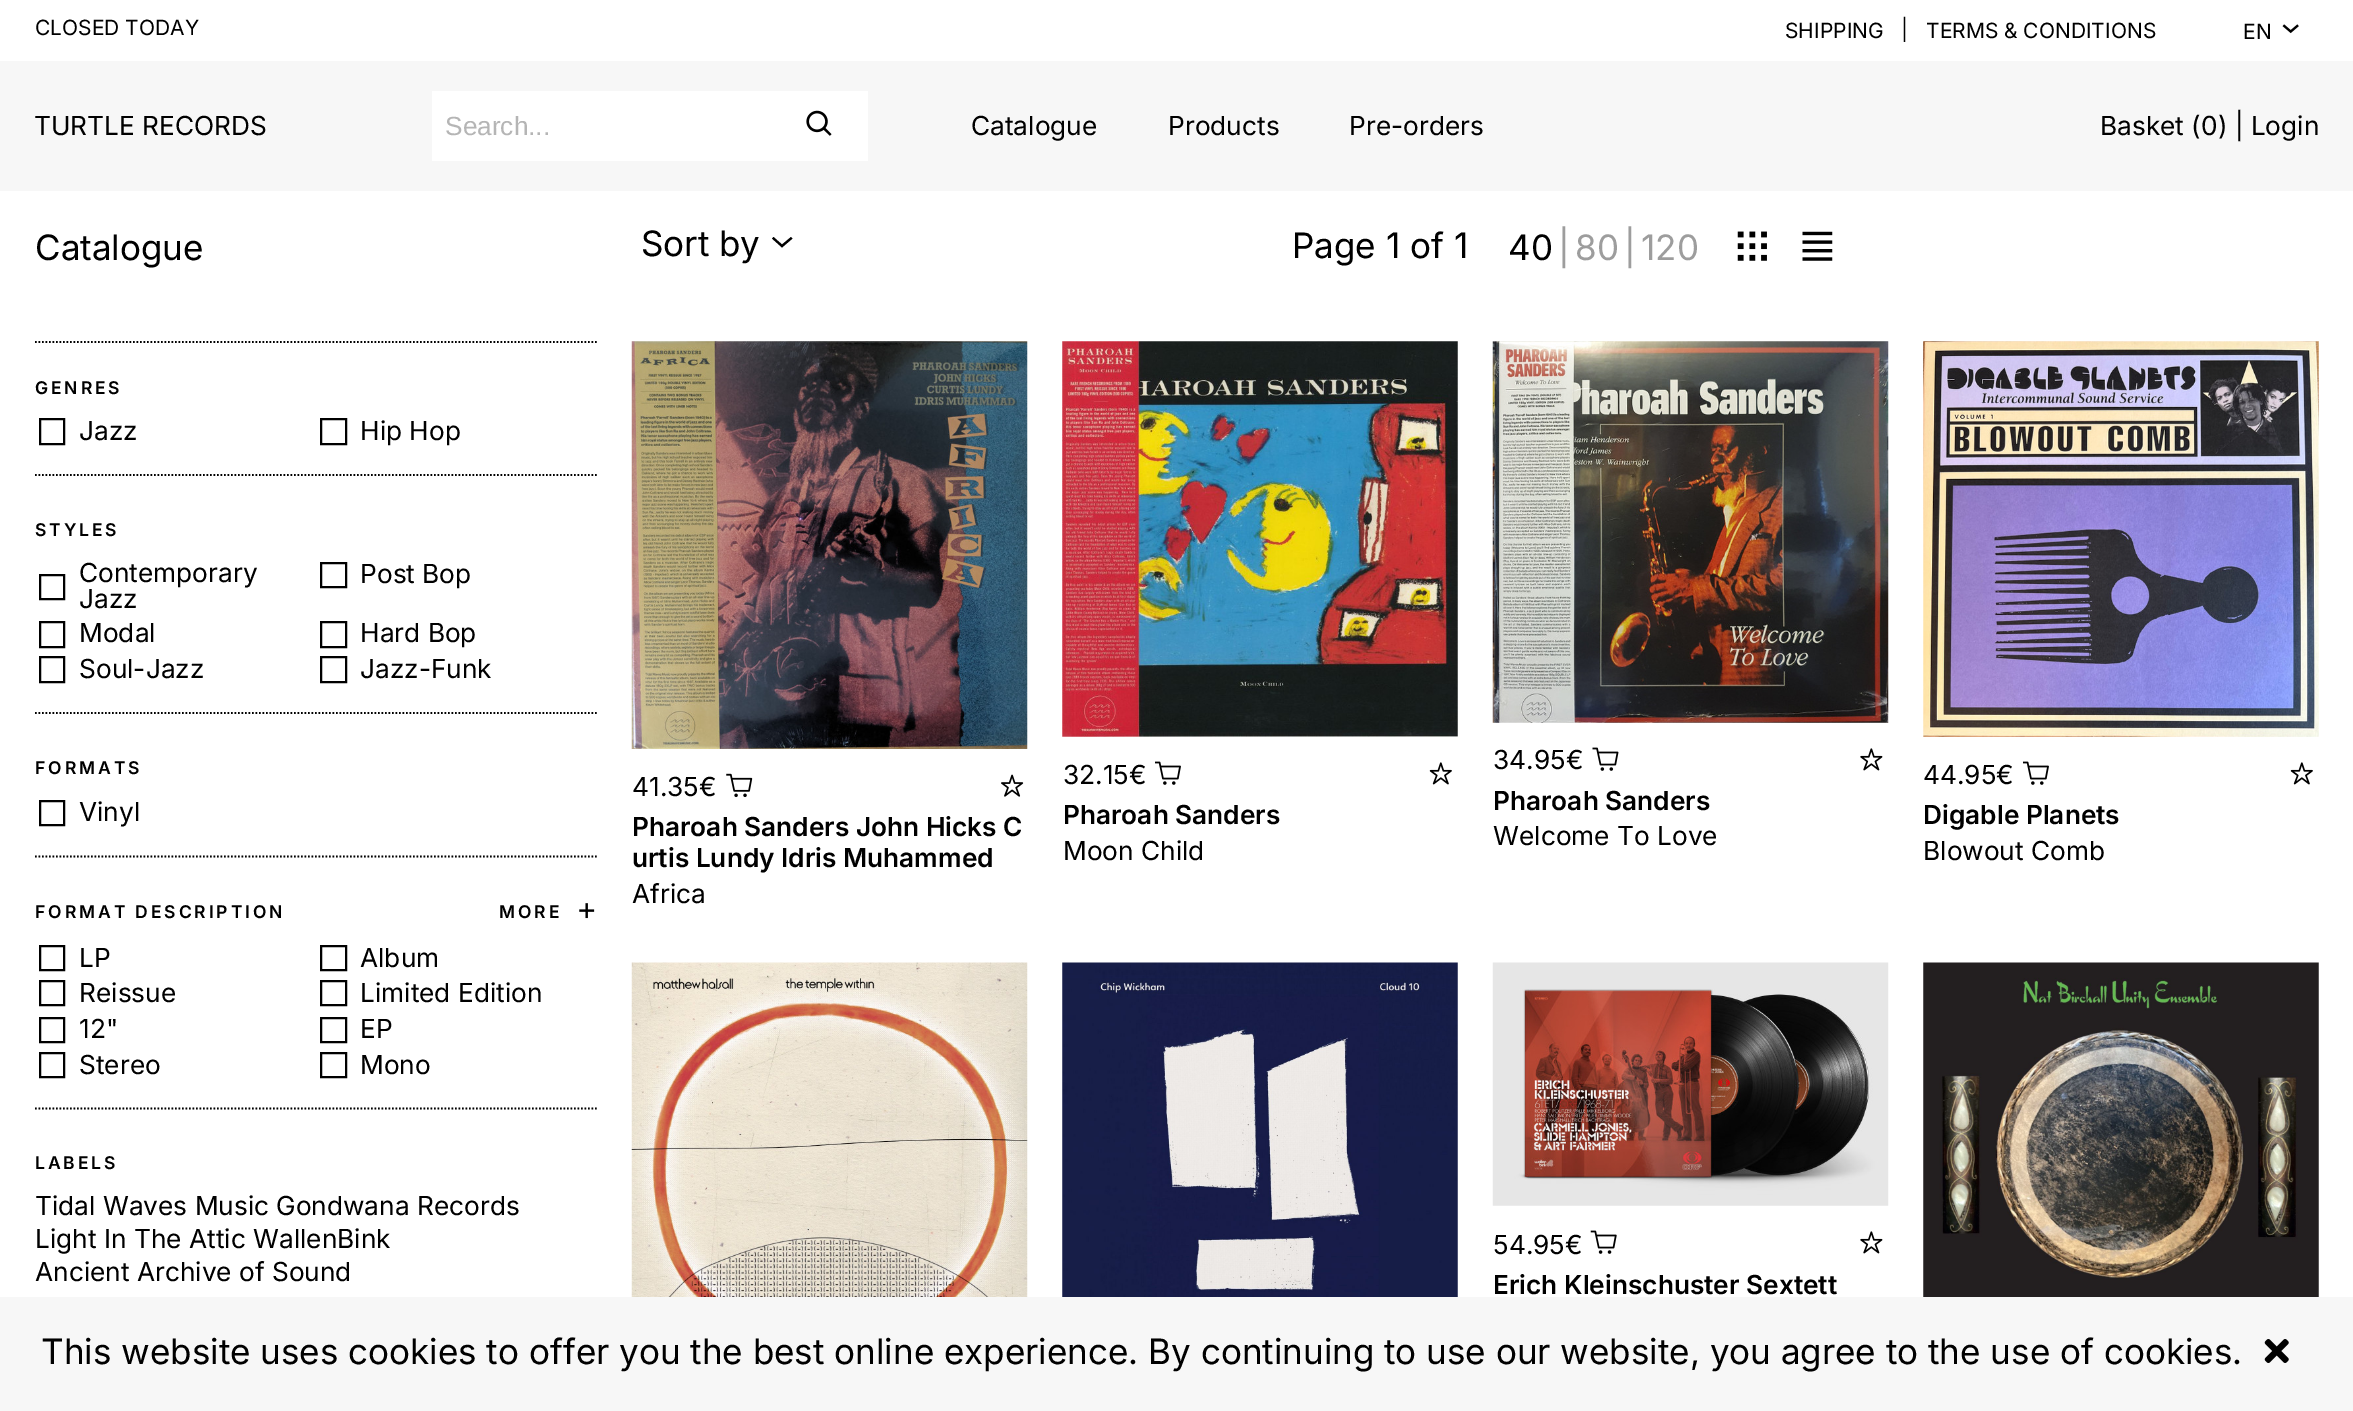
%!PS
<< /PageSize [2353 1411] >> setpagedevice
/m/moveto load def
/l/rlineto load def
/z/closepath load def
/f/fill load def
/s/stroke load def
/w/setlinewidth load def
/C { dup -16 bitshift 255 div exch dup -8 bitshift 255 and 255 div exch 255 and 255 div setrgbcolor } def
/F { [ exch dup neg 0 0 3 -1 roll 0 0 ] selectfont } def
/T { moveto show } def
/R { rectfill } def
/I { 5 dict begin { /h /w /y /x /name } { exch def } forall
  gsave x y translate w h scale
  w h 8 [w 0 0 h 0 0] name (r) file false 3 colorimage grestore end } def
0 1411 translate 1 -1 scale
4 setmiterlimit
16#FFFFFF C
0 0 2353 1411 R
/Inter-Regular 21 F
16#000000 C
(CLOSED TODAY) 35 35 T
(SHIPPING) 1785 38 T
(|) 1901 37 T
(TERMS & CONDITIONS) 1926 38 T
(EN) 2243 39 T
(1.rgb) 2282 24 17 10 I
16#F7F7F7 C
0 61 2353 130 R
/Inter-Regular 26.25 F
16#000000 C
(TURTLE RECORDS) 34 135 T
16#FFFFFF C
432 91 436 70 R
/LiberationSans-Regular 26.25 F
16#B5B5B5 C
(Search...) 445 135 T
(2.rgb) 806 110 26 26 I
/Inter-Regular 26.25 F
16#000000 C
(Catalogue) 971 135 T
(Products) 1168 135 T
(Pre-orders) 1349 135 T
(Basket \(0\) | Login) 2100 135 T
/Inter-Regular 35 F
(Catalogue) 35 260 T
(Sort by) 641 256 T
782 247.5 m -10 -9 l 1.5 -1.5 l 8.5 7.5 l 9 -7.5 l 1.5 1.5 l z f
(Page 1 of 1) 1292 258 T
(40) 1508 260 T
16#9D9D9D C
(|) 1558 260 T
(80) 1575 260 T
(|) 1624 260 T
(120) 1641 260 T
(3.rgb) 1737 231 30 30 I
(4.rgb) 1802 231 31 30 I
16#000000 C
1.8 w
[1.75 1.75] 0 setdash
35 342 m 562 0 l s
/Inter-SemiBold 17.5 F
35 394 m 2.9 0 (GENRES) ashow
2 w
[] 0 setdash
40 419 24 25 rectstroke
/Inter-Regular 26.25 F
(Jazz) 79 440 T
321 419 25 25 rectstroke
(Hip Hop) 360 440 T
1.8 w
[1.75 1.75] 0 setdash
35 475 m 562 0 l s
/Inter-SemiBold 17.5 F
35 536 m 2.9 0 (STYLES) ashow
2 w
[] 0 setdash
40 575 24 24 rectstroke
/Inter-Regular 26.25 F
(Contemporary) 79 582 T
(Jazz) 79 608 T
321 563 25 24 rectstroke
(Post Bop) 360 583 T
40 622 24 25 rectstroke
(Modal) 79 642 T
321 622 25 25 rectstroke
(Hard Bop) 360 642 T
40 657 24 25 rectstroke
(Soul-Jazz) 79 678 T
321 657 25 25 rectstroke
(Jazz-Funk) 360 678 T
1.8 w
[1.75 1.75] 0 setdash
35 713 m 562 0 l s
/Inter-SemiBold 17.5 F
35 774 m 2.9 0 (FORMATS) ashow
2 w
[] 0 setdash
40 801 24 24 rectstroke
/Inter-Regular 26.25 F
(Vinyl) 79 821 T
1.8 w
[1.75 1.75] 0 setdash
35 856.5 m 562 0 l s
/Inter-SemiBold 17.5 F
35 918 m 2.9 0 (FORMAT DESCRIPTION) ashow
499 918 m 2.9 0 (MORE) ashow
(5.rgb) 579 903 16 16 I
2 w
[] 0 setdash
40 946 24 24 rectstroke
/Inter-Regular 26.25 F
(LP) 79 967 T
321 946 25 24 rectstroke
(Album) 360 967 T
40 981 24 24 rectstroke
(Reissue) 79 1002 T
321 981 25 24 rectstroke
(Limited Edition) 360 1002 T
40 1018 24 24 rectstroke
(12") 79 1038 T
321 1018 25 24 rectstroke
(EP) 360 1038 T
40 1053 24 24 rectstroke
(Stereo) 79 1074 T
321 1053 25 24 rectstroke
(Mono) 360 1074 T
1.8 w
[1.75 1.75] 0 setdash
35 1108.5 m 562 0 l s
/Inter-SemiBold 17.5 F
35 1169 m 2.9 0 (LABELS) ashow
/Inter-Regular 26.25 F
(Tidal Waves Music) 35 1215 T
(Gondwana Records) 276 1215 T
(Light In The Attic) 35 1248 T
(WallenBink) 253 1248 T
(Ancient Archive of Sound) 35 1281 T
(6.rgb) 631 341 397 408 I
(41.35€) 632 796 T
(7.rgb) 726 773 27 25 I
(8.rgb) 1001 774 23 23 I
/Inter-SemiBold 26.25 F
(Pharoah Sanders John Hicks C) 632 836 T
(urtis Lundy Idris Muhammed) 632 867 T
/Inter-Regular 26.25 F
(Africa) 632 903 T
(9.rgb) 1062 341 396 396 I
(32.15€) 1063 784 T
(10.rgb) 1155 761 26 24 I
(11.rgb) 1429 762 23 23 I
/Inter-SemiBold 26.25 F
(Pharoah Sanders) 1063 824 T
/Inter-Regular 26.25 F
(Moon Child) 1063 860 T
(12.rgb) 1492 341 397 382 I
(34.95€) 1493 769 T
(13.rgb) 1592 747 27 24 I
(14.rgb) 1860 748 23 23 I
/Inter-SemiBold 26.25 F
(Pharoah Sanders) 1493 810 T
/Inter-Regular 26.25 F
(Welcome To Love) 1493 845 T
(15.rgb) 1923 341 396 396 I
(44.95€) 1923 784 T
(10.rgb) 2023 761 26 24 I
(11.rgb) 2290 762 23 23 I
/Inter-SemiBold 26.25 F
(Digable Planets) 1923 824 T
/Inter-Regular 26.25 F
(Blowout Comb) 1923 860 T
(16.rgb) 631 962 397 335 I
(17.rgb) 1062 962 396 335 I
(18.rgb) 1492 962 397 244 I
(54.95€) 1493 1254 T
(19.rgb) 1590 1230 27 24 I
(14.rgb) 1860 1231 23 23 I
/Inter-SemiBold 26.25 F
(Erich Kleinschuster Sextett) 1493 1294 T
(20.rgb) 1923 962 396 335 I
16#F7F7F7 C
0 1297 2353 114 R
/Inter-Regular 35 F
16#000000 C
(This website uses cookies to offer you the best online experience. By continuing to use our website, you agree to the use of cookies.) 41 1364 T
(21.rgb) 2264 1339 25 24 I
showpage
